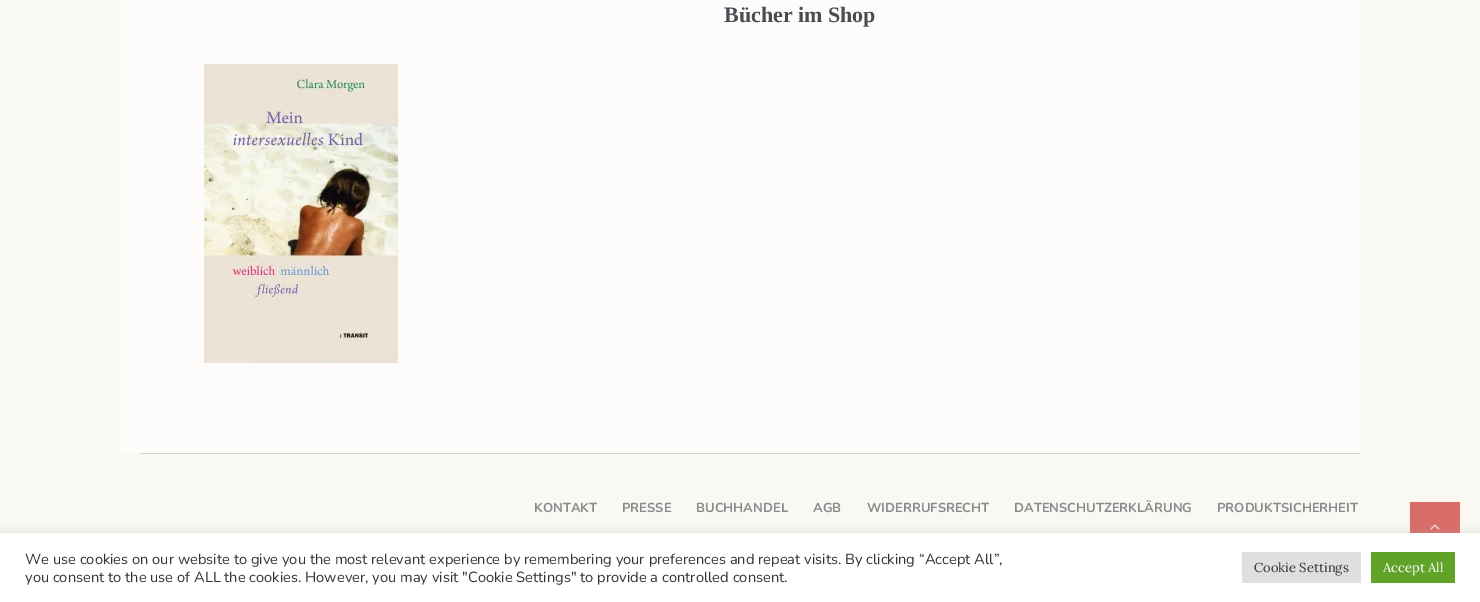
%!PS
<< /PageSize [1480 602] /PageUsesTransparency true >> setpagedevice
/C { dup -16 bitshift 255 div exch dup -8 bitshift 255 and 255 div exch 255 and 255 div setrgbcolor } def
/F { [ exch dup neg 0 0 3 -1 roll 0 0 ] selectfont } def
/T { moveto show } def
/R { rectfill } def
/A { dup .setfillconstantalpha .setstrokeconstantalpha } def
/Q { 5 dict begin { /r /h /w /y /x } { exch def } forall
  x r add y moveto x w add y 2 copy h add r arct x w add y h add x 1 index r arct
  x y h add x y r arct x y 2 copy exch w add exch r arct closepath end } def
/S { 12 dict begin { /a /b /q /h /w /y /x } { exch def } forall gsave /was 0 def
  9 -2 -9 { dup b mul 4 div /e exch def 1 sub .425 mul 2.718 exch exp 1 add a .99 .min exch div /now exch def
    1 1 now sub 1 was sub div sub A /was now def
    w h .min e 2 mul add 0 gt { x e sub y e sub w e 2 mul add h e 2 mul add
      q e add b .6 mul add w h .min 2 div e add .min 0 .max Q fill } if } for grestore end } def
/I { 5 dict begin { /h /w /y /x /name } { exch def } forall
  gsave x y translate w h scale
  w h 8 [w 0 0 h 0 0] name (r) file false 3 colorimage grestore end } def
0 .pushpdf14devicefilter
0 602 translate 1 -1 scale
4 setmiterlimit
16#FAF8F2 C
0 0 1480 602 R
16#FDFCFB C
120 0 1240 453 R
/LiberationSerif-Bold 22 F
16#484C53 C
(Bücher im Shop) 724 22 T
(1.rgb) 204 64 194 299 I
16#DA6C67 C
1410 502 50 31 R
(2.rgb) 1430 524 10 6 I
16#D4D4D4 C
140 453 1220 1 R
/Nunito-Bold 13 F
16#898A8D C
(KONTAKT) 534 512 T
(PRESSE) 622 512 T
(BUCHHANDEL) 696 512 T
(AGB) 813 512 T
(WIDERRUFSRECHT) 867 512 T
(DATENSCHUTZERKLÄRUNG) 1014 512 T
(PRODUKTSICHERHEIT) 1217 512 T
16#ACABAB C
0 532 1480 69 0 5 .3 S
16#FFFFFF C
0 533 1480 69 R
/Nunito-Regular 14.67 F
16#333333 C
(We use cookies on our website to give you the most relevant experience by remembering your preferences and repeat visits. By clicking “Accept All”,) 25 564 T
(you consent to the use of ALL the cookies. However, you may visit "Cookie Settings" to provide a controlled consent.) 25 582 T
16#DEDFE0 C
1242 552 119 31 R
/Lora-Regular 13 F
16#333333 C
(Cookie Settings) 1254 572 T
16#61A229 C
1371 552 84 31 R
16#FFFFFF C
(Accept All) 1383 572 T
.poppdf14devicefilter showpage
